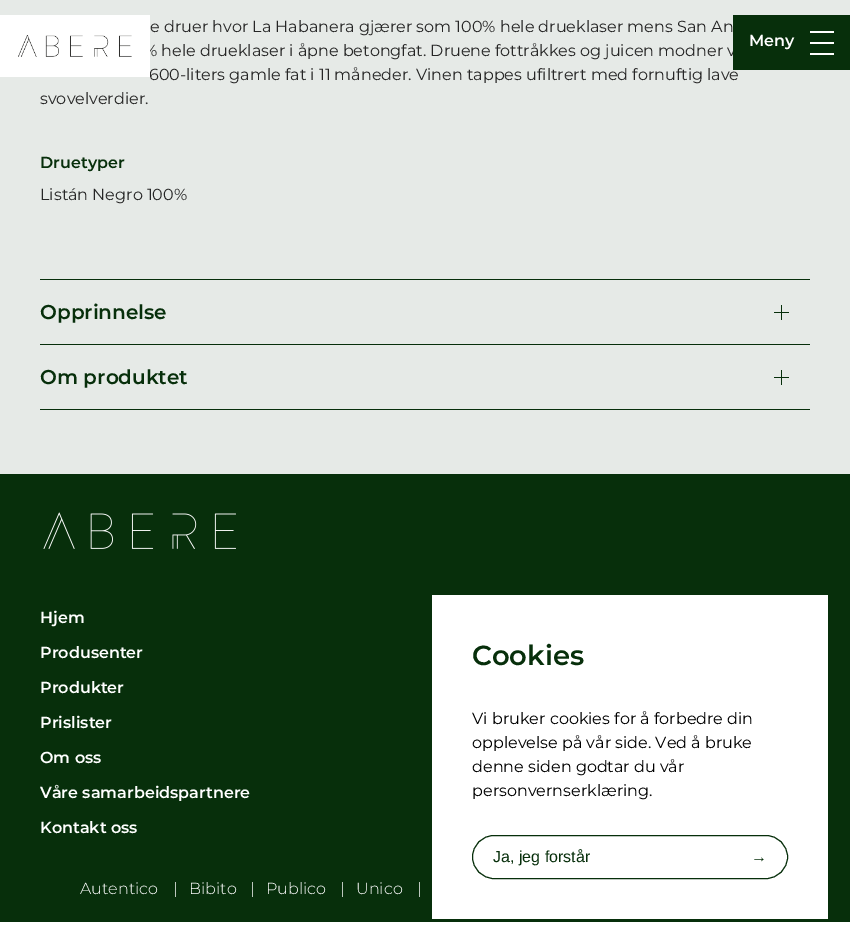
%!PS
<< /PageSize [850 941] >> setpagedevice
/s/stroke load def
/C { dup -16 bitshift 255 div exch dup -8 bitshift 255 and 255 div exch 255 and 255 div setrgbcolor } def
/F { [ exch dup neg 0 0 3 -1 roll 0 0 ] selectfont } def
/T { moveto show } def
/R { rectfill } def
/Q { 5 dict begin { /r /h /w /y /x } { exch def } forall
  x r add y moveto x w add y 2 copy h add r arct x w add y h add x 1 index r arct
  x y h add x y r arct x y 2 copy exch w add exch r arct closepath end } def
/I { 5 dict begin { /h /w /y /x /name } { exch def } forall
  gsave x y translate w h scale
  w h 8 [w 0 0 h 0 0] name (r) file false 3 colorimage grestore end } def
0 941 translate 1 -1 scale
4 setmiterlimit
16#E6EAE7 C
0 0 850 941 R
16#072F0B C
40 279 770 1 R
/Montserrat-Regular 16 F
16#262626 C
(e druer hvor La Habanera gjærer som 100% hele drueklaser mens San An) 150 32 T
(% hele drueklaser i åpne betongfat. Druene fottråkkes og juicen modner v) 144 56 T
(600-liters gamle fat i 11 måneder. Vinen tappes ufiltrert med fornuftig lave) 149 80 T
(svovelverdier.) 40 104 T
/Montserrat-SemiBold 16 F
16#072F0B C
(Druetyper) 40 168 T
/Montserrat-Regular 16 F
16#262626 C
(Listán Negro 100%) 40 200 T
16#072F0B C
40 344 770 1 R
/Montserrat-SemiBold 20 F
(Opprinnelse) 40 319 T
774 312 15 1 R
781 305 1 15 R
40 409 770 1 R
(Om produktet) 40 384 T
774 377 15 1 R
781 370 1 15 R
16#FFFFFF C
0 15 150 62 R
(1.rgb) 18 35 114 22 I
16#072F0B C
733 15 117 55 R
/Montserrat-SemiBold 16 F
16#FFFFFF C
(Meny) 749 46 T
810 31 24 2 R
810 42 24 2 R
810 53 24 2 R
16#072F0B C
0 474 850 448 R
(2.rgb) 43 512 193 37 I
16#FFFFFF C
(Hjem) 40 623 T
(Produsenter) 40 658 T
(Produkter) 40 693 T
(Prislister) 40 728 T
(Om oss) 40 763 T
(Våre samarbeidspartnere) 40 798 T
(Kontakt oss) 40 833 T
/Montserrat-Light 16 F
(Autentico) 80 894 T
(|) 173 894 T
(Bibito) 189 894 T
(|) 250 894 T
(Publico) 266 894 T
(|) 340 894 T
(Unico) 356 894 T
(|) 417 894 T
432 595 396 324 R
/Montserrat-SemiBold 27.5 F
16#072F0B C
(Cookies) 472 665 T
/Montserrat-Regular 16 F
16#000000 C
(Vi bruker cookies for å forbedre din) 472 724 T
(opplevelse på vår side. Ved å bruke) 472 748 T
(denne siden godtar du vår) 472 772 T
(personvernserklæring.) 472 796 T
16#072F0B C
472.5 835.5 315 43 21.5 Q s
/LiberationSans-Regular 16 F
(Ja, jeg forstår) 493 862 T
(→) 751 862 T
16#FFFFFF C
0 922 850 19 R
showpage
